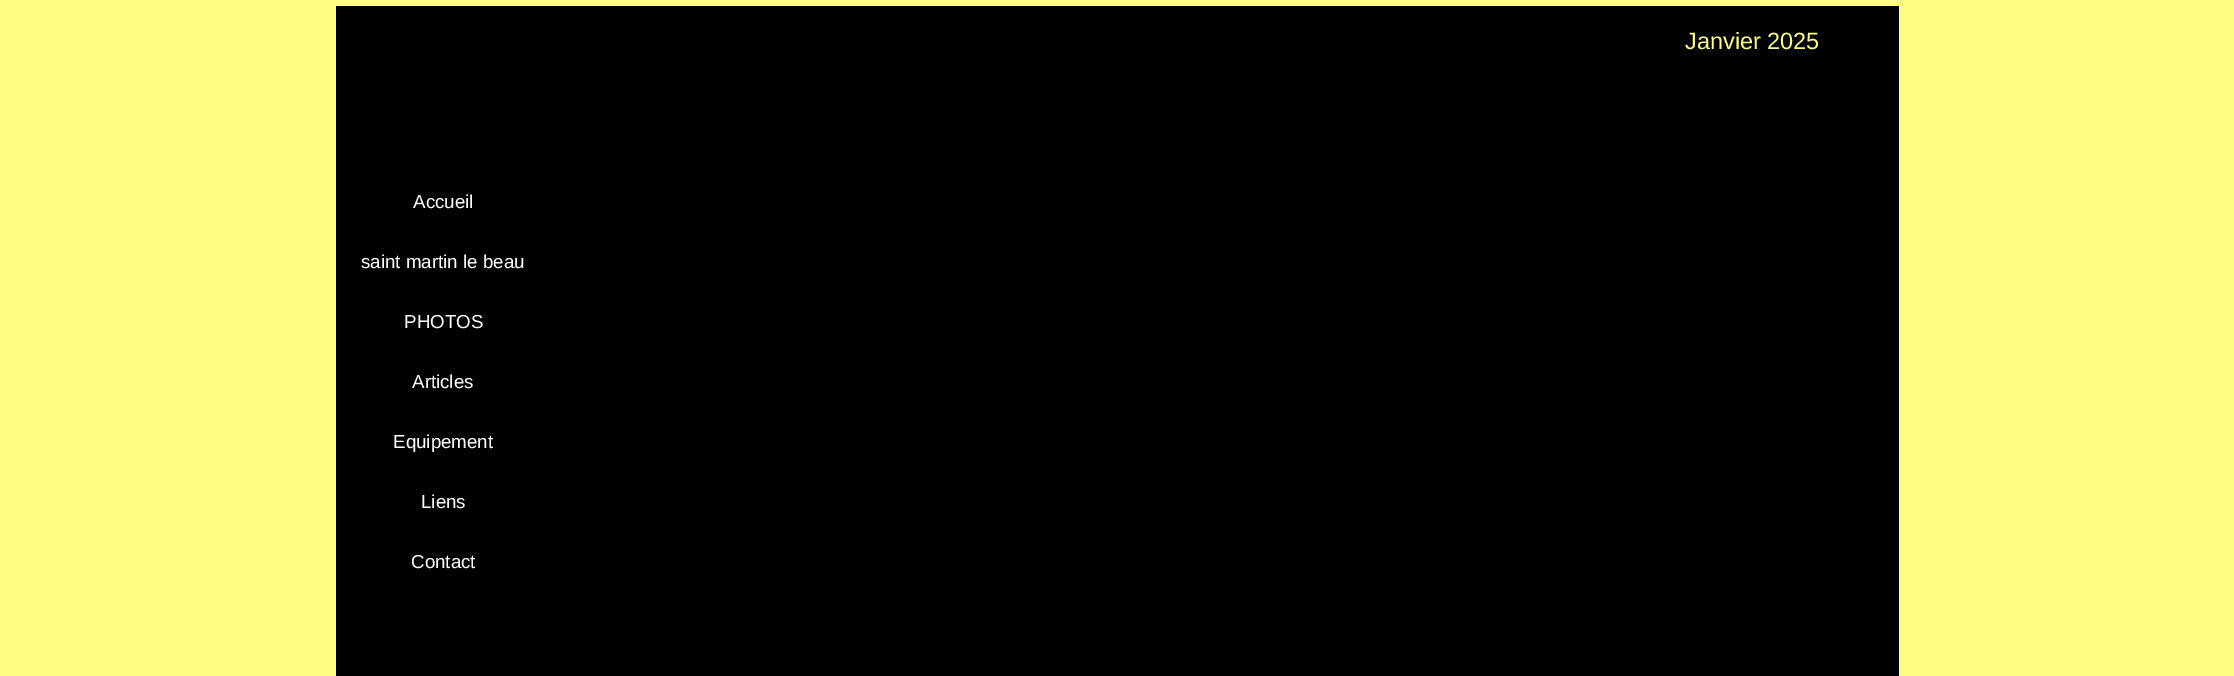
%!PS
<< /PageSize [2234 676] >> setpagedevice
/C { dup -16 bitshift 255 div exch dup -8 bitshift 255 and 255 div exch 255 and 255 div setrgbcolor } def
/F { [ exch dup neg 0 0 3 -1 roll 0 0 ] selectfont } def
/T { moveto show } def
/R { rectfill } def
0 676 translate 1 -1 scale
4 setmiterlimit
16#FFFC83 C
0 0 2234 676 R
16#000000 C
336 6 1563 670 R
/LiberationSans-Regular 23.5 F
16#FFFC83 C
(Janvier 2025) 1685 49 T
/LiberationSans-Regular 18.75 F
16#FFFFFF C
(Accueil) 413 208 T
(saint martin le beau) 361 268 T
(PHOTOS) 404 328 T
(Articles) 412 388 T
(Equipement) 393 448 T
(Liens) 421 508 T
(Contact) 411 568 T
showpage
